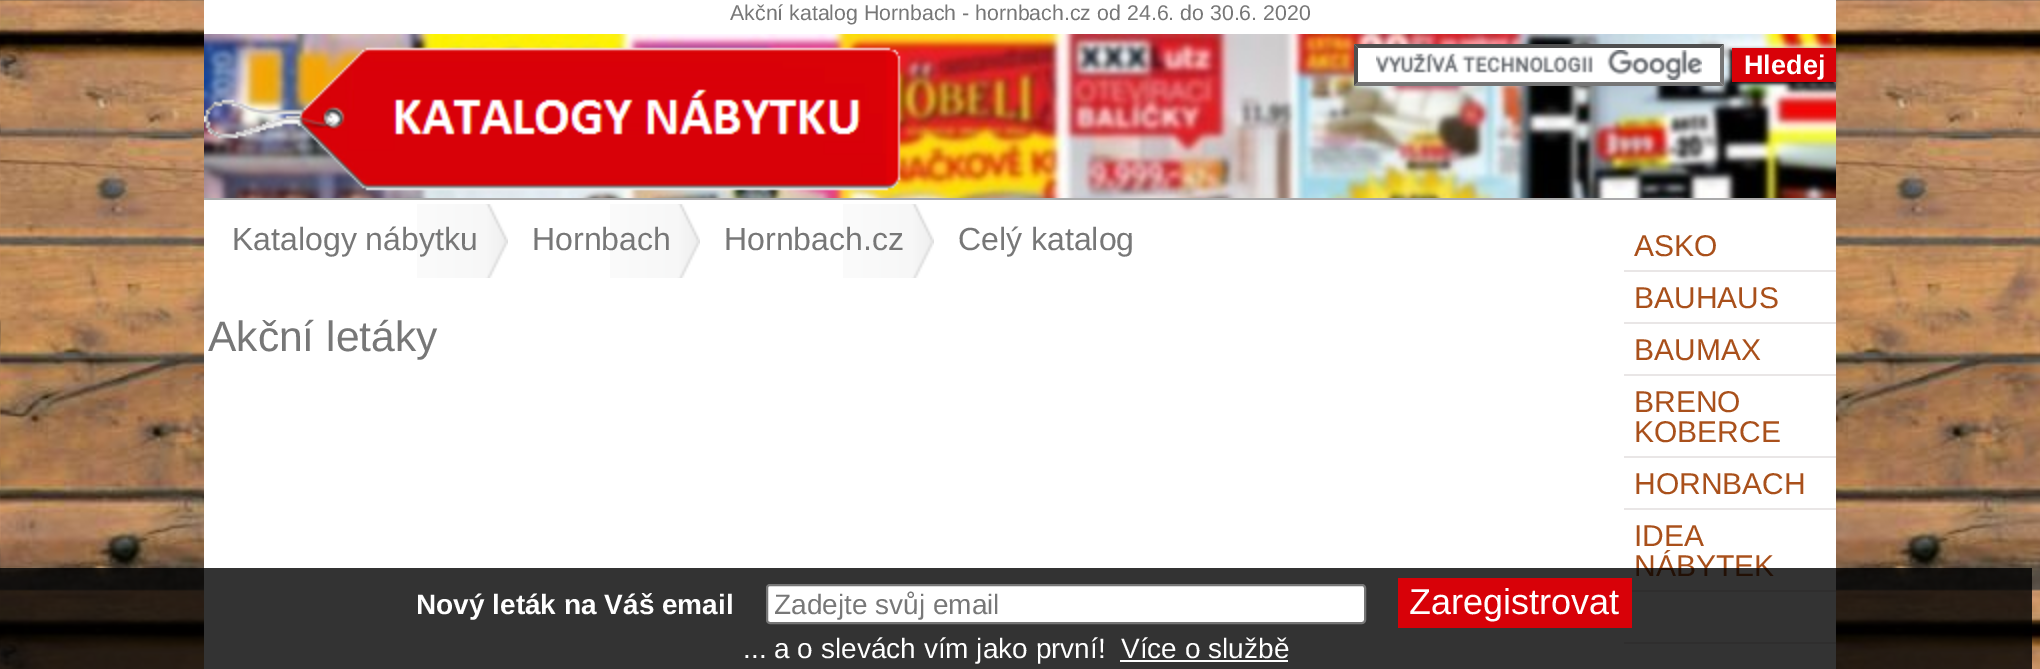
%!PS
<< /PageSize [2040 669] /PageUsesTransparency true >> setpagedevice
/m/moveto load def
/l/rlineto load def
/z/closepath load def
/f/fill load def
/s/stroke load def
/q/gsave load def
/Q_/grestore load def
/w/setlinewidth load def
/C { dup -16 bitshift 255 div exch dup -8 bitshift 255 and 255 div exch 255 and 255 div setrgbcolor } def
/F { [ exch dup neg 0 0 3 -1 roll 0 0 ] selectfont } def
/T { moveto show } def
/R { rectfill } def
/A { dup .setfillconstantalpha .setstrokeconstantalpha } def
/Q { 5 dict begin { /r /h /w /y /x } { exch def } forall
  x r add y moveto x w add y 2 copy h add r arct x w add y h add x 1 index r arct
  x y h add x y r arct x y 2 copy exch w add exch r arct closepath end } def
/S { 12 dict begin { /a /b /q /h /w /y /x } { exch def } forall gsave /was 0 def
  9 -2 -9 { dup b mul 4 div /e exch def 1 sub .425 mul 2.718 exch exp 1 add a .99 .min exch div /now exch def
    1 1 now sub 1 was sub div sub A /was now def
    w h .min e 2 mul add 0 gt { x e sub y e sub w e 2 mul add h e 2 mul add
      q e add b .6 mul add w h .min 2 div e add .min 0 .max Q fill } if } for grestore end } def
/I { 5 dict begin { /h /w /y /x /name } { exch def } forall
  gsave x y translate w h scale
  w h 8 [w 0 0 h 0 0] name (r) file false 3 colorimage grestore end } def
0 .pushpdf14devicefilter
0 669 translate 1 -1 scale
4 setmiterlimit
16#FFFFFF C
0 0 2040 669 R
(1.rgb) 0 0 2040 669 I
204 0 1632 669 R
/LiberationSans-Regular 21.3 F
16#777777 C
(Akční katalog Hornbach - hornbach.cz od) 730 20 T
(24.6. do 30.6. 2020) 1127 20 T
(2.rgb) 204 34 1632 164 I
16#AAAAAA C
204 198 1632 2 R
(3.rgb) 204 47 697 144 I
16#FFFFFF C
1354 44 370 42 R
(4.rgb) 1376 50 326 30 I
16#4F4F4F C
1354 44 m 370 0 l -4 4 l -362 0 l z f
16#767676 C
1724 44 m 0 42 l -4 -4 l 0 -34 l z f
1724 86 m -370 0 l 4 -4 l 362 0 l z f
16#4F4F4F C
1354 86 m 0 -42 l 4 4 l 0 34 l z f
16#000000 C
1730 50 104 34 0 2 1 S
16#D80108 C
1732 48 104 34 R
/LiberationSans-Bold 27 F
16#FFFFFF C
(Hledej) 1744 74 T
(5.rgb) 417 204 91 74 I
/LiberationSans-Regular 32 F
16#777777 C
(Katalogy nábytku) 232 250 T
(6.rgb) 610 204 90 74 I
(Hornbach) 532 250 T
(5.rgb) 843 204 91 74 I
(Hornbach.cz) 724 250 T
(Celý katalog) 958 250 T
/LiberationSans-Regular 42.5 F
(Akční letáky) 208 351 T
16#E9E6E6 C
1624 270 212 2 R
/LiberationSans-Regular 30 F
16#A9501B C
(ASKO) 1634 256 T
16#E9E6E6 C
1624 322 212 2 R
16#A9501B C
(BAUHAUS) 1634 308 T
16#E9E6E6 C
1624 374 212 2 R
16#A9501B C
(BAUMAX) 1634 360 T
16#E9E6E6 C
1624 456 212 2 R
16#A9501B C
(BRENO) 1634 412 T
(KOBERCE) 1634 442 T
16#E9E6E6 C
1624 508 212 2 R
16#A9501B C
(HORNBACH) 1634 494 T
16#E9E6E6 C
1624 590 212 2 R
16#A9501B C
(IDEA) 1634 546 T
(NÁBYTEK) 1634 576 T
16#E9E6E6 C
1624 642 212 2 R
0.8 A
16#000000 C
0 568 2032 101 R
/LiberationSans-Bold 28 F
1 A
16#FFFFFF C
(Nový leták na Váš email) 416 614 T
767 585 598 38 3 Q q f Q_
16#767676 C
2 w
s
/LiberationSans-Regular 28 F
16#777777 C
(Zadejte svůj email) 774 614 T
16#D80108 C
1398 578 234 50 R
/LiberationSans-Regular 36 F
16#FFFFFF C
(Zaregistrovat) 1409 614 T
/LiberationSans-Regular 28 F
(... a o slevách vím jako první!) 743 658 T
(Více o službě) 1121 658 T
1120 660 168 2 R
.poppdf14devicefilter showpage
